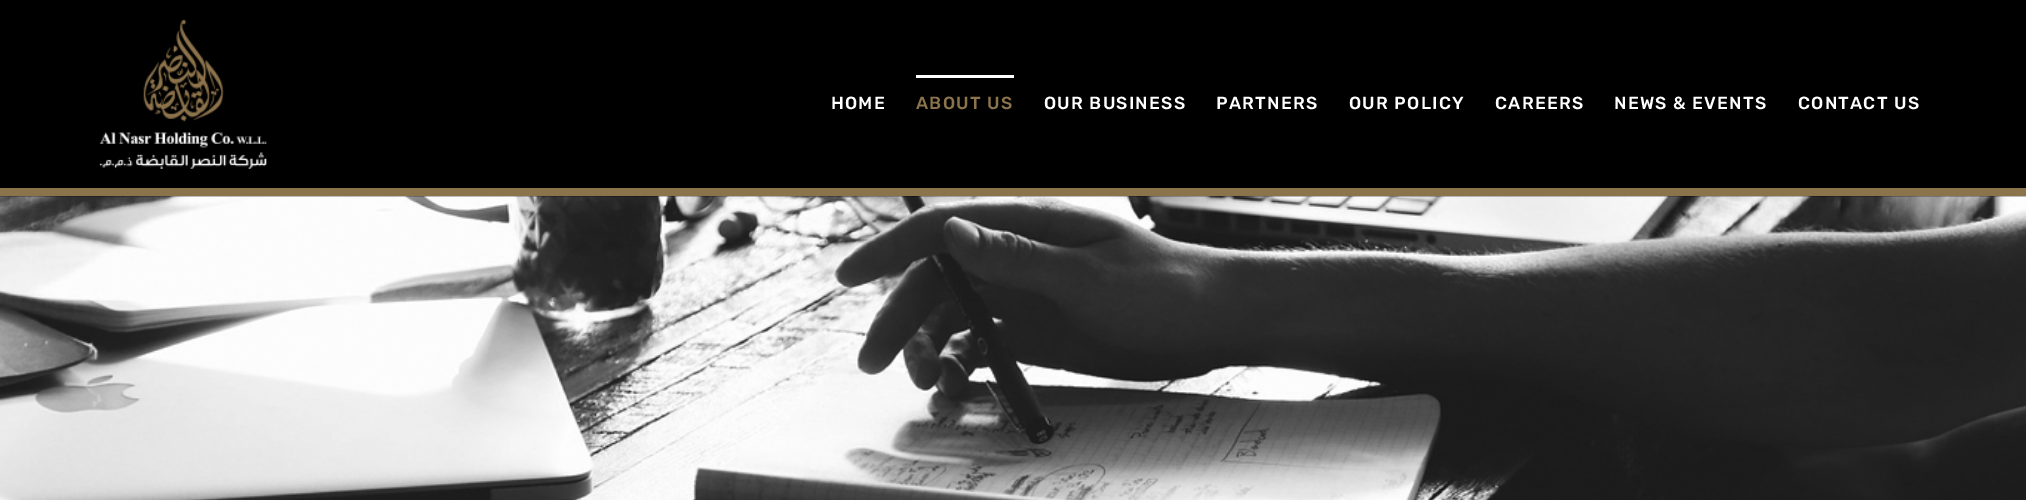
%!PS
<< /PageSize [2026 500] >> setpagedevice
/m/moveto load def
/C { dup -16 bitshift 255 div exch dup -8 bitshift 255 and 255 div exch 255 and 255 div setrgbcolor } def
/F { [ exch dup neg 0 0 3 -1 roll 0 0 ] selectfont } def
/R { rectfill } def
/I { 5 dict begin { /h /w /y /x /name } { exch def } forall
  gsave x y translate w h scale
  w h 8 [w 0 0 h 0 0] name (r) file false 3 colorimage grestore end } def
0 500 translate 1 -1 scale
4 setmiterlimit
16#000000 C
0 0 2026 500 R
16#8B734B C
0 188 2026 8 R
(1.rgb) 99 19 168 150 I
/Rubik-Medium 17.5 F
16#FFFFFF C
831 109 m 1.25 0 (HOME) ashow
916 75 98 3 R
16#8B734B C
916 109 m 1.25 0 (ABOUT US) ashow
16#FFFFFF C
1044 109 m 1.25 0 (OUR BUSINESS) ashow
1216 109 m 1.25 0 (PARTNERS) ashow
1349 109 m 1.25 0 (OUR POLICY) ashow
1495 109 m 1.25 0 (CAREERS) ashow
1614 109 m 1.25 0 (NEWS & EVENTS) ashow
1798 109 m 1.25 0 (CONTACT US) ashow
(2.rgb) 0 196 2026 304 I
showpage
